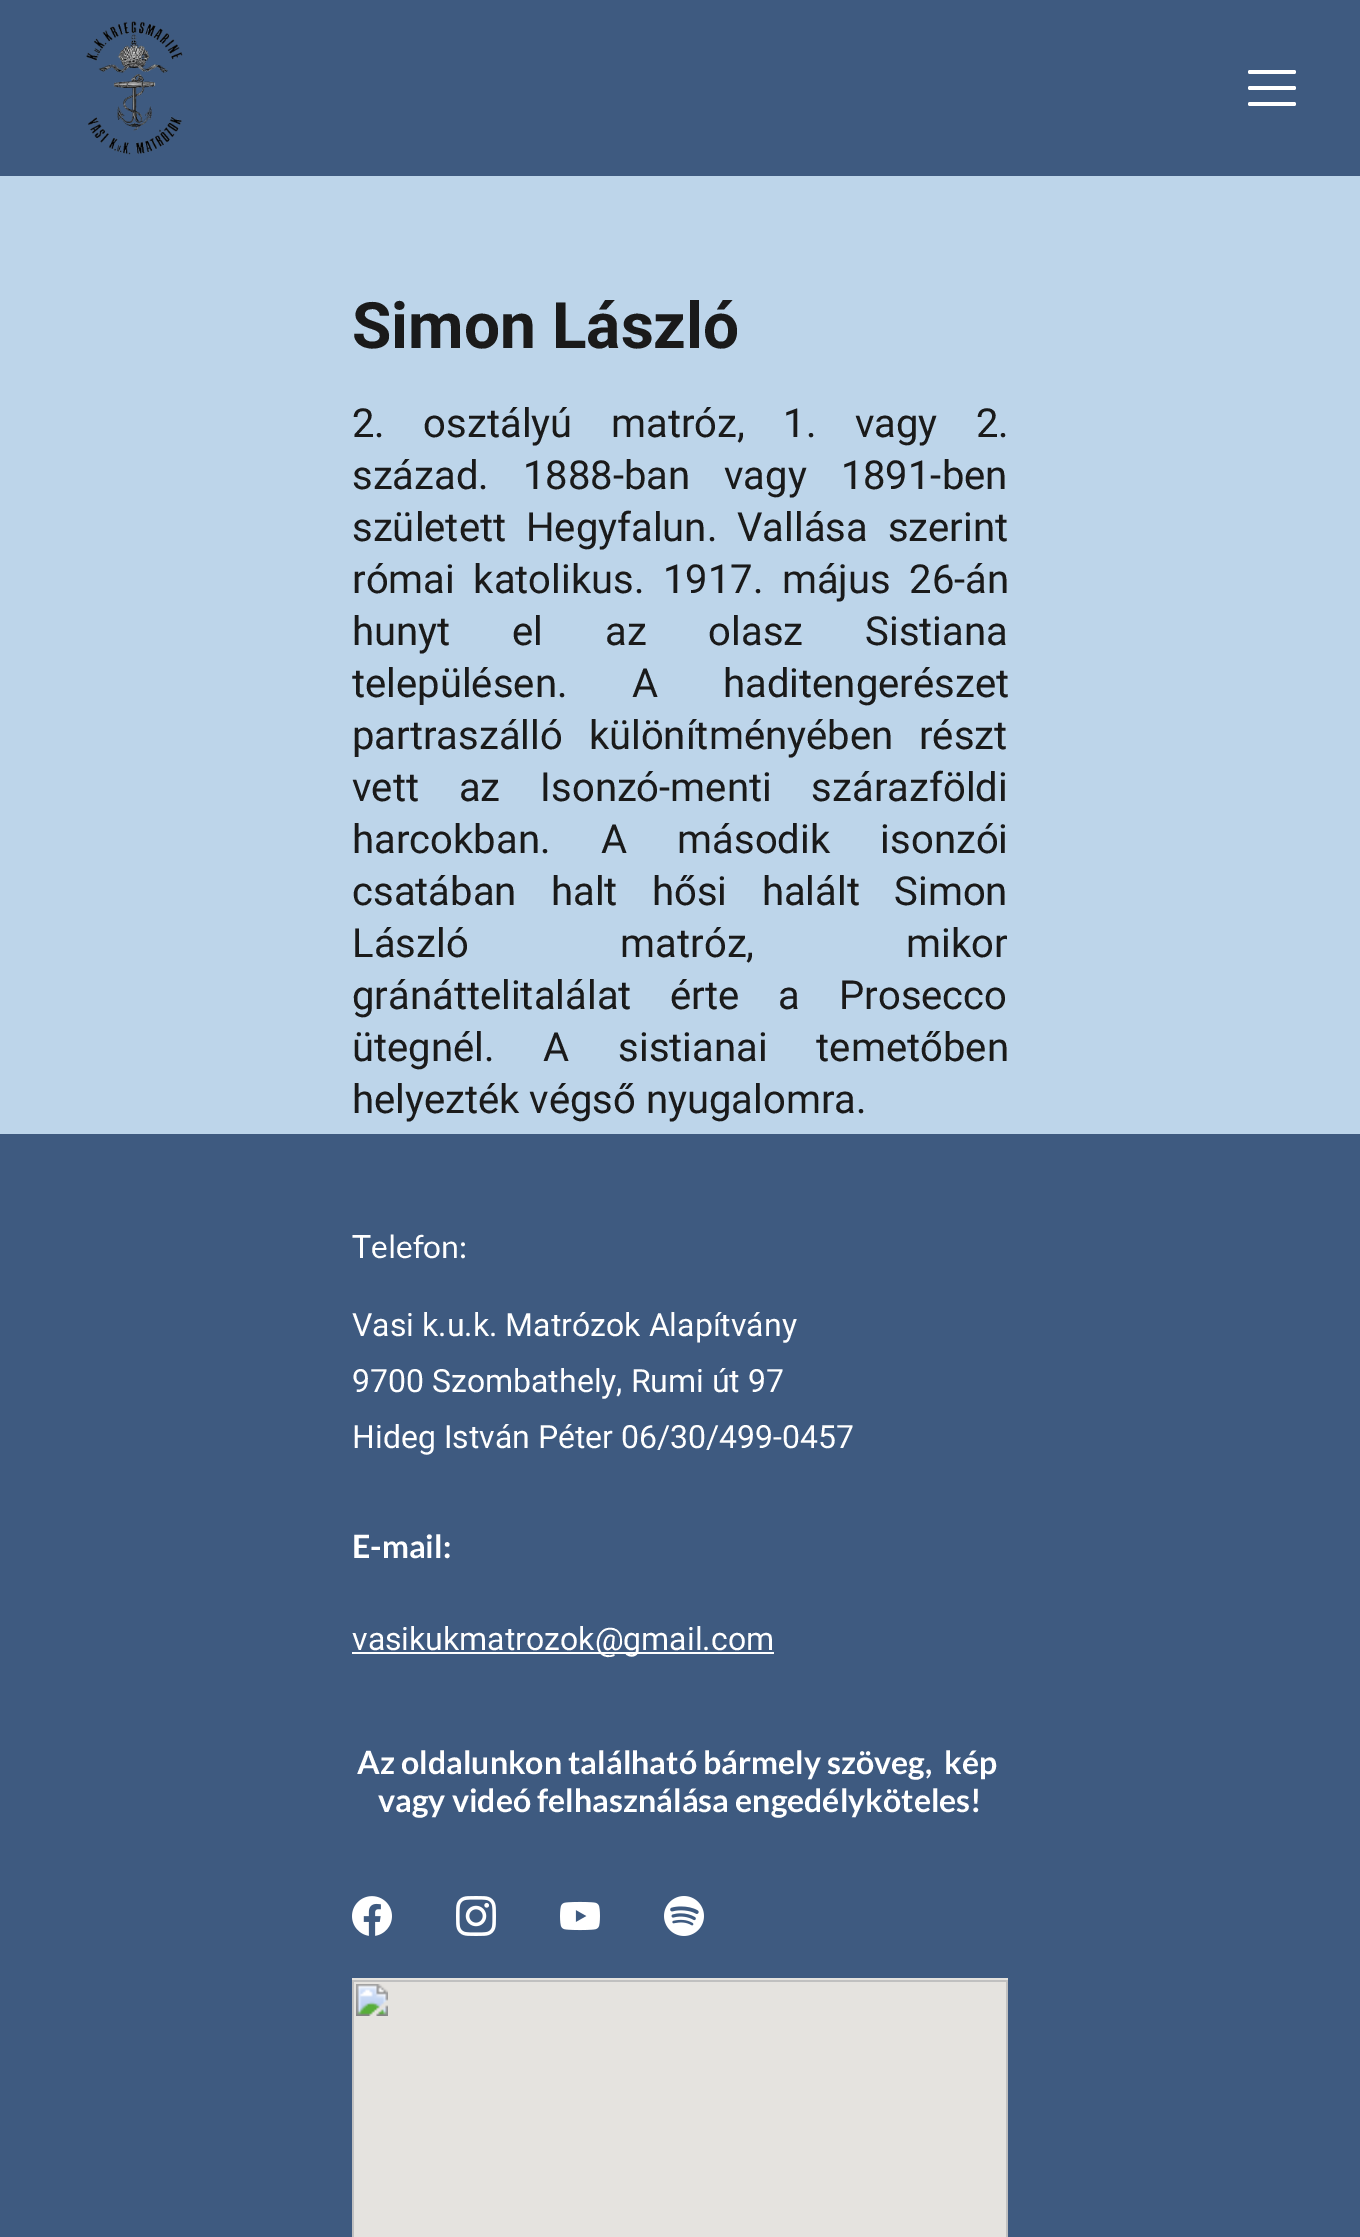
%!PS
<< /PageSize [1360 2237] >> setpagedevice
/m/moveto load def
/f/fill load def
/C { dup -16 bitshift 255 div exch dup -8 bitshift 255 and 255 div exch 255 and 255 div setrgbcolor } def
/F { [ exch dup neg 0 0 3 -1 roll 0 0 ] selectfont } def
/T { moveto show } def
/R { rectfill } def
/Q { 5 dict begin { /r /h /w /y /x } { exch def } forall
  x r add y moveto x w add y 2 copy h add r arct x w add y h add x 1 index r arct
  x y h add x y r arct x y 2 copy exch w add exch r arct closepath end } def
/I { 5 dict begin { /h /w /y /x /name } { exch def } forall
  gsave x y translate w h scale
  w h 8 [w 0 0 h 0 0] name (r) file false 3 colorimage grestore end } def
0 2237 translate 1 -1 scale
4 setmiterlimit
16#BDD5EA C
0 0 1360 2237 R
16#3E5A80 C
0 0 1360 176 R
(1.rgb) 86 21 97 134 I
16#FFFFFF C
1248 70 48 4 2 Q f
1248 86 48 4 2 Q f
1248 102 48 4 2 Q f
/Roboto-Bold 64 F
16#1A1A1A C
(Simon László) 352 348 T
/Roboto-Regular 40 F
352 437 m 28.5 0 32 (2. osztályú matróz, 1. vagy 2.) widthshow
352 489 m 24 0 32 (század. 1888-ban vagy 1891-ben) widthshow
352 541 m 10 0 32 (született Hegyfalun. Vallása szerint) widthshow
352 593 m 8.5 0 32 (római katolikus. 1917. május 26-án) widthshow
352 645 m 52 0 32 (hunyt el az olasz Sistiana) widthshow
352 697 m 55 0 32 (településen. A haditengerészet) widthshow
352 749 m 16 0 32 (partraszálló különítményében részt) widthshow
352 801 m 30 0 32 (vett az Isonzó-menti szárazföldi) widthshow
352 853 m 40.5 0 32 (harcokban. A második isonzói) widthshow
352 905 m 24.5 0 32 (csatában halt hősi halált Simon) widthshow
352 957 m 142 0 32 (László matróz, mikor) widthshow
352 1009 m 29 0 32 (gránáttelitalálat érte a Prosecco) widthshow
352 1061 m 39 0 32 (ütegnél. A sistianai temetőben) widthshow
(helyezték végső nyugalomra.) 352 1113 T
16#3E5A80 C
0 1134 1360 1103 R
/Lato-Regular 32 F
16#FFFFFF C
(Telefon:) 352 1258 T
/Roboto-Regular 32 F
(Vasi k.u.k. Matrózok Alapítvány) 352 1336 T
(9700 Szombathely, Rumi út 97) 352 1392 T
(Hideg István Péter 06/30/499-0457) 352 1448 T
/Lato-Bold 32 F
(E-mail:) 352 1558 T
352 1652 422 2 R
/Roboto-Regular 32 F
(vasikukmatrozok@gmail.com) 352 1650 T
/Lato-Bold 32 F
(Az oldalunkon található bármely szöveg,  kép) 357 1774 T
(vagy videó felhasználása engedélyköteles!) 378 1812 T
(2.rgb) 352 1896 40 40 I
(3.rgb) 456 1896 40 40 I
(4.rgb) 560 1901 40 30 I
(5.rgb) 664 1896 40 40 I
(6.rgb) 352 1978 656 259 I
showpage
